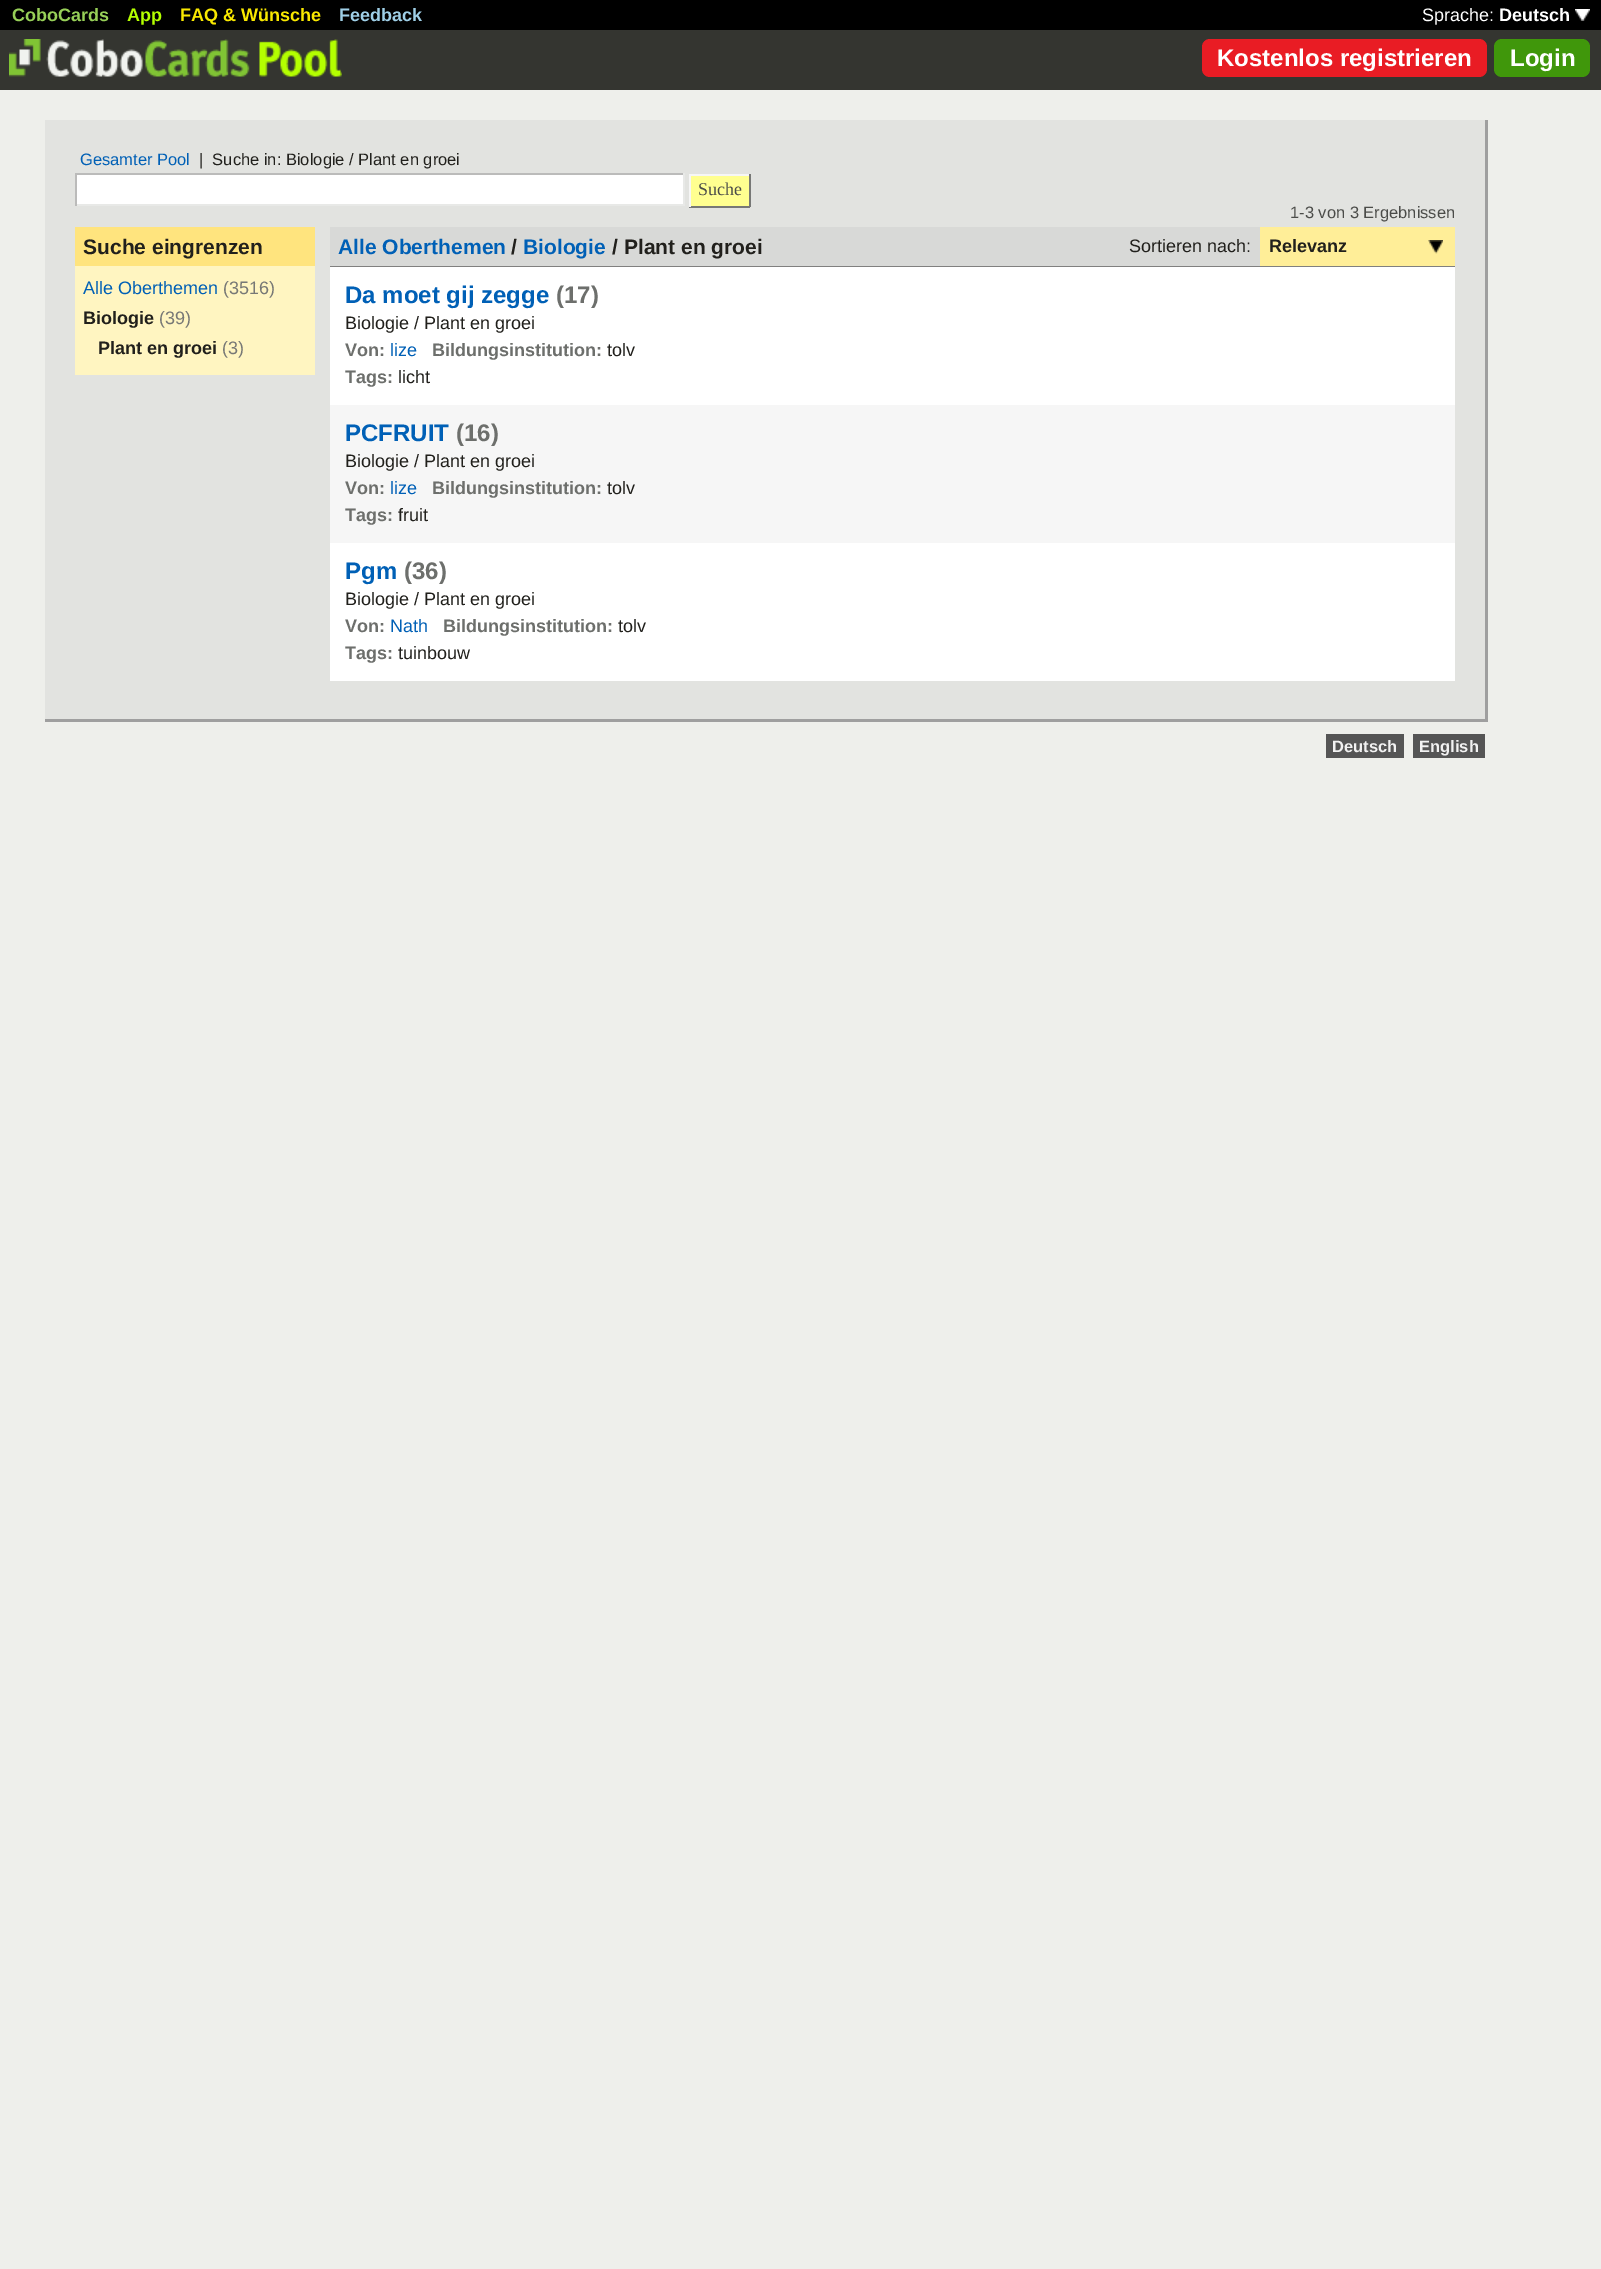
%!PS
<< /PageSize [1601 2269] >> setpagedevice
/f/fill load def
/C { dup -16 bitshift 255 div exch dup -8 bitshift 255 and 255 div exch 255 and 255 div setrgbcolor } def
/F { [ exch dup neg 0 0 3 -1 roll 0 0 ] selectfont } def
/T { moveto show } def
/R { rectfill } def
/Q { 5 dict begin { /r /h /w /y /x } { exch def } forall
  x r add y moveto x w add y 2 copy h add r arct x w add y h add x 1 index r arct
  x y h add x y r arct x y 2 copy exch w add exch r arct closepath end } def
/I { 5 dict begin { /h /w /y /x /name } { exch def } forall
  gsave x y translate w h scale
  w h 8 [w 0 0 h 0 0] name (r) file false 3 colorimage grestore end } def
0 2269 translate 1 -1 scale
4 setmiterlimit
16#EEEFEB C
0 0 1601 2269 R
16#343530 C
0 30 1601 60 R
16#000000 C
0 0 1601 30 R
/LiberationSans-Bold 18 F
16#97CF58 C
(CoboCards) 12 21 T
16#B4FF00 C
(App) 127 21 T
16#F9E800 C
(FAQ & Wünsche) 180 21 T
16#9FCFE7 C
(Feedback) 339 21 T
/LiberationSans-Regular 18 F
16#FFFFFF C
(Sprache:) 1422 21 T
/LiberationSans-Bold 18 F
(Deutsch) 1499 21 T
(1.rgb) 1575 9 15 12 I
(2.rgb) 9 39 333 38 I
16#E91C24 C
1202 39 285 38 8 Q f
/LiberationSans-Bold 24 F
16#FFFFFF C
(Kostenlos registrieren) 1217 66 T
16#40970B C
1494 39 96 38 8 Q f
16#FFFFFF C
(Login) 1510 66 T
16#E2E3E0 C
45 120 1440 599 R
16#9F9F9F C
1485 120 3 602 R
45 719 1443 3 R
/LiberationSans-Regular 16.5 F
16#0060B6 C
(Gesamter Pool) 80 165 T
16#21201C C
(|  Suche in: Biologie / Plant en groei) 199 165 T
16#FFFFFF C
77 175 606 29 R
16#BBBBBA C
75 173 609 2 R
16#E8E9E7 C
683 173 2 33 R
75 204 609 2 R
16#BBBBBA C
75 173 2 33 R
16#FFFF90 C
691 176 58 30 R
16#F6F6F6 C
689 174 61 2 R
16#777876 C
749 174 2 33 R
689 206 61 2 R
16#F6F6F6 C
689 174 2 33 R
/LiberationSerif-Regular 18 F
16#4B4C49 C
(Suche) 698 195 T
16#FFE47E C
75 227 240 39 R
/LiberationSans-Bold 21 F
16#21201C C
(Suche eingrenzen) 83 254 T
16#FFF5C1 C
75 266 240 109 R
/LiberationSans-Regular 18 F
16#0060B6 C
(Alle Oberthemen) 83 294 T
16#777876 C
(\(3516\)) 223 294 T
/LiberationSans-Bold 18 F
16#21201C C
(Biologie) 83 324 T
/LiberationSans-Regular 18 F
16#777876 C
(\(39\)) 159 324 T
/LiberationSans-Bold 18 F
16#21201C C
(Plant en groei) 98 354 T
/LiberationSans-Regular 18 F
16#777876 C
(\(3\)) 222 354 T
/LiberationSans-Regular 16.5 F
16#4B4C49 C
(1-3 von 3 Ergebnissen) 1290 218 T
16#D8D9D7 C
330 227 930 39 R
16#80807F C
330 266 1125 1 R
/LiberationSans-Bold 21 F
16#0060B6 C
(Alle Oberthemen) 338 254 T
16#21201C C
(/) 511 254 T
16#0060B6 C
(Biologie) 523 254 T
16#21201C C
(/ Plant en groei) 612 254 T
/LiberationSans-Regular 18 F
(Sortieren nach:) 1129 252 T
16#FFEE98 C
1260 227 195 39 R
/LiberationSans-Bold 18 F
16#21201C C
(Relevanz) 1269 252 T
(3.rgb) 1428 240 15 14 I
16#FFFFFF C
330 267 1125 138 R
/LiberationSans-Bold 24 F
16#0060B6 C
(Da moet gij zegge) 345 303 T
16#6D6F6C C
(\(17\)) 556 303 T
/LiberationSans-Regular 18 F
16#21201C C
(Biologie / Plant en groei) 345 329 T
/LiberationSans-Bold 18 F
16#6D6F6C C
(Von:) 345 356 T
/LiberationSans-Regular 18 F
16#0060B6 C
(lize) 390 356 T
/LiberationSans-Bold 18 F
16#6D6F6C C
(Bildungsinstitution:) 432 356 T
/LiberationSans-Regular 18 F
16#21201C C
(tolv) 607 356 T
/LiberationSans-Bold 18 F
16#6D6F6C C
(Tags:) 345 383 T
/LiberationSans-Regular 18 F
16#21201C C
(licht) 398 383 T
16#F6F6F6 C
330 405 1125 138 R
/LiberationSans-Bold 24 F
16#0060B6 C
(PCFRUIT) 345 441 T
16#6D6F6C C
(\(16\)) 456 441 T
/LiberationSans-Regular 18 F
16#21201C C
(Biologie / Plant en groei) 345 467 T
/LiberationSans-Bold 18 F
16#6D6F6C C
(Von:) 345 494 T
/LiberationSans-Regular 18 F
16#0060B6 C
(lize) 390 494 T
/LiberationSans-Bold 18 F
16#6D6F6C C
(Bildungsinstitution:) 432 494 T
/LiberationSans-Regular 18 F
16#21201C C
(tolv) 607 494 T
/LiberationSans-Bold 18 F
16#6D6F6C C
(Tags:) 345 521 T
/LiberationSans-Regular 18 F
16#21201C C
(fruit) 398 521 T
16#FFFFFF C
330 543 1125 138 R
/LiberationSans-Bold 24 F
16#0060B6 C
(Pgm) 345 579 T
16#6D6F6C C
(\(36\)) 404 579 T
/LiberationSans-Regular 18 F
16#21201C C
(Biologie / Plant en groei) 345 605 T
/LiberationSans-Bold 18 F
16#6D6F6C C
(Von:) 345 632 T
/LiberationSans-Regular 18 F
16#0060B6 C
(Nath) 390 632 T
/LiberationSans-Bold 18 F
16#6D6F6C C
(Bildungsinstitution:) 443 632 T
/LiberationSans-Regular 18 F
16#21201C C
(tolv) 618 632 T
/LiberationSans-Bold 18 F
16#6D6F6C C
(Tags:) 345 659 T
/LiberationSans-Regular 18 F
16#21201C C
(tuinbouw) 398 659 T
16#555555 C
1326 734 78 24 R
/LiberationSans-Bold 16.5 F
16#F2F2F2 C
(Deutsch) 1332 752 T
16#555555 C
1413 734 72 24 R
16#F2F2F2 C
(English) 1419 752 T
showpage
